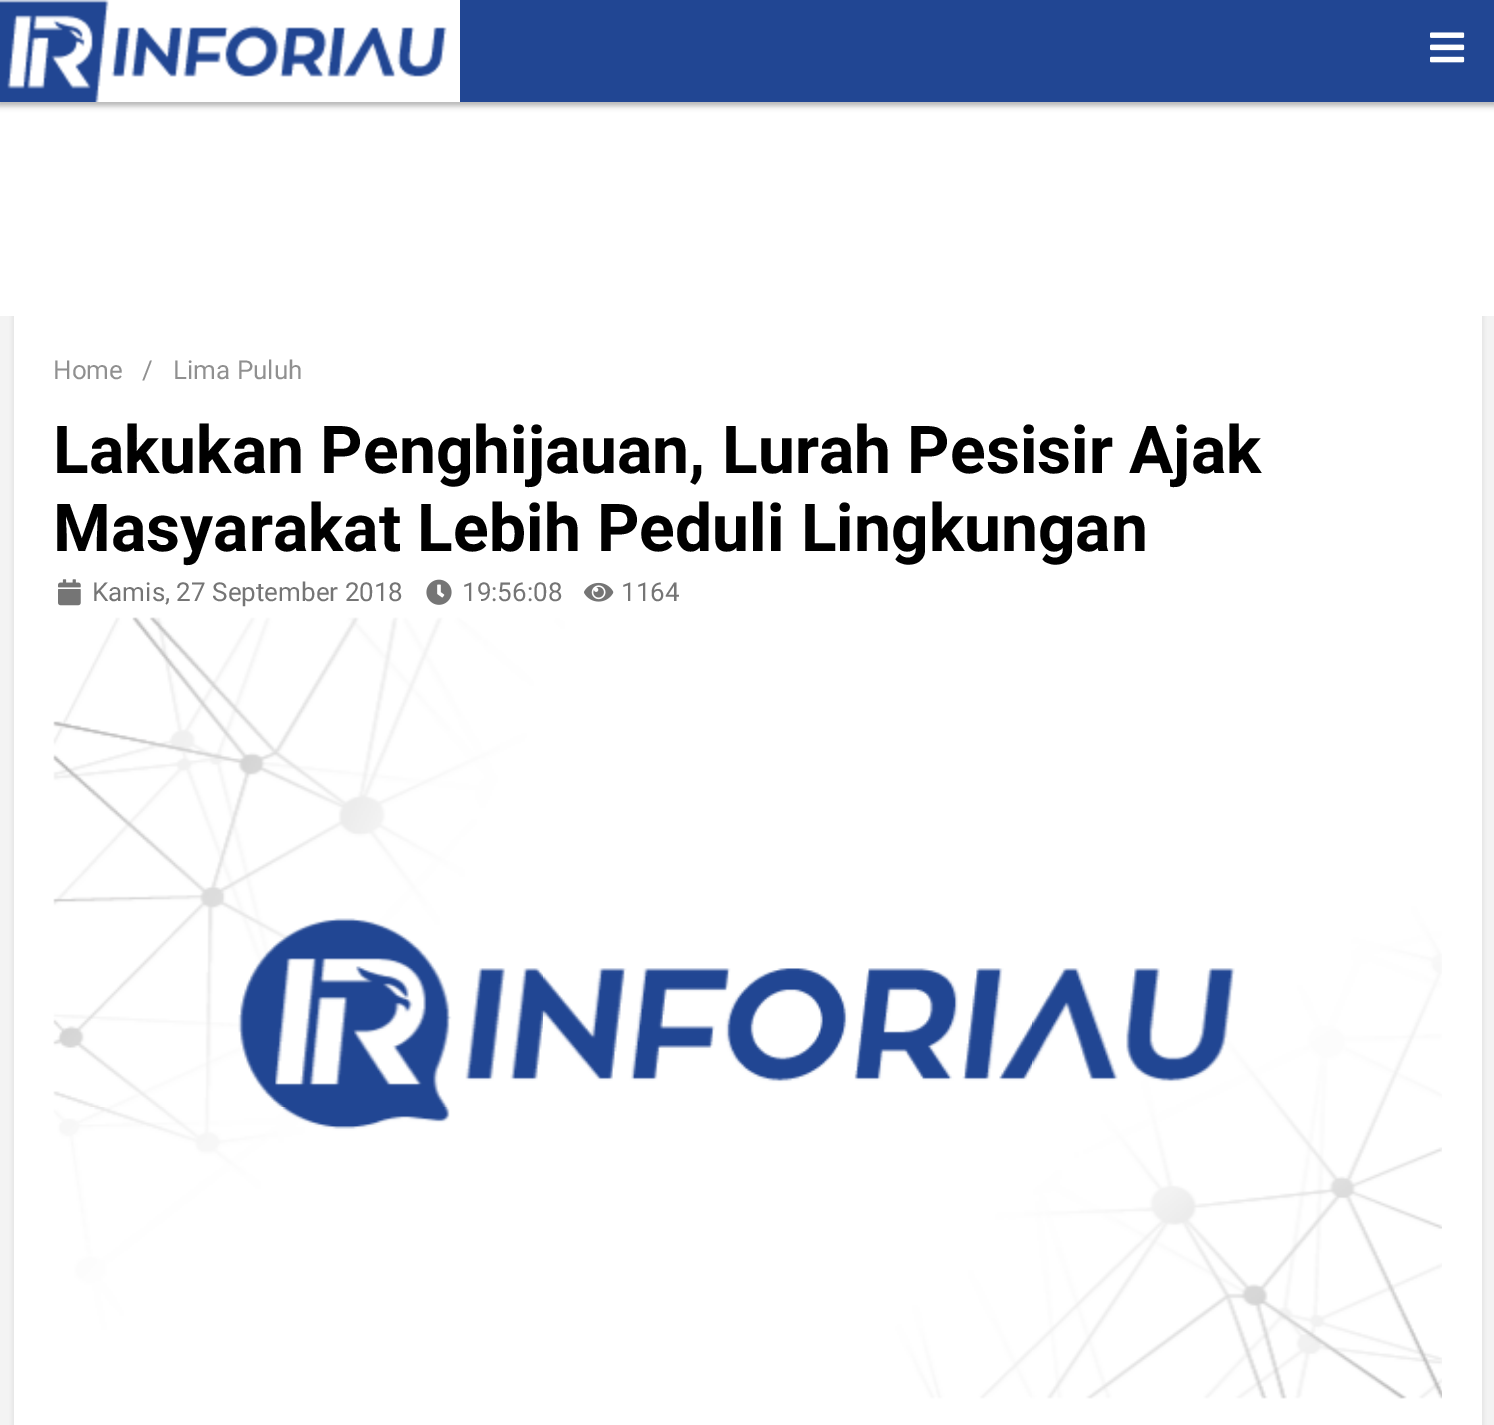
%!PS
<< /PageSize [1494 1425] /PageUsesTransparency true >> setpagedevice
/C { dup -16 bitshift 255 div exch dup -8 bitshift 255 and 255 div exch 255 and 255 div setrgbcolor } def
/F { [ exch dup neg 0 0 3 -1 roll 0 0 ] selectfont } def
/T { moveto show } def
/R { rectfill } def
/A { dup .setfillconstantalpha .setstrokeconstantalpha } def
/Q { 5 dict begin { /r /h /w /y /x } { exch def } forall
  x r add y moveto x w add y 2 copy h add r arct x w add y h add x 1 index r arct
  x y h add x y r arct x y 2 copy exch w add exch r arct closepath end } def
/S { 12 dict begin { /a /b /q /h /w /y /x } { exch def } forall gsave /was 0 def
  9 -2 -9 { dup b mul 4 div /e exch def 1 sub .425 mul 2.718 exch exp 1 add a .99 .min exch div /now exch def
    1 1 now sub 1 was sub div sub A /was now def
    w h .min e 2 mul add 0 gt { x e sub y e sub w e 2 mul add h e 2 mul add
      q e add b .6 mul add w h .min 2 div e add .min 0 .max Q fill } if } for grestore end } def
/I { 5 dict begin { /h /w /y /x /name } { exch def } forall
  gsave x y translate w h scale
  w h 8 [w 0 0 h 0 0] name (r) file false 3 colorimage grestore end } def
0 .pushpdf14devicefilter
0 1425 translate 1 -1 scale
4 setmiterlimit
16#F3F3F3 C
0 0 1494 1425 R
16#D5D5D5 C
12 314 1472 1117 0 2 .5 S
16#FFFFFF C
0 102 1494 214 R
16#000000 C
-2 0 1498 106 0 3 .3 S
16#214693 C
460 0 1034 102 R
(1.rgb) 0 0 460 102 I
(2.rgb) 1430 32 35 31 I
16#FFFFFF C
14 316 1468 1109 R
/Roboto-Regular 26 F
16#909090 C
(Home) 53 379 T
(/) 142 379 T
(Lima Puluh) 173 379 T
/Roboto-Bold 66 F
16#000000 C
(Lakukan Penghijauan, Lurah Pesisir Ajak) 53 473 T
(Masyarakat Lebih Peduli Lingkungan) 53 551 T
(3.rgb) 58 579 23 27 I
/Roboto-Regular 26 F
16#757575 C
(Kamis, 27 September 2018) 92 601 T
(4.rgb) 426 579 26 26 I
(19:56:08) 462 601 T
(5.rgb) 584 582 30 20 I
(1164) 621 601 T
(6.rgb) 53 617 1389 782 I
.poppdf14devicefilter showpage
